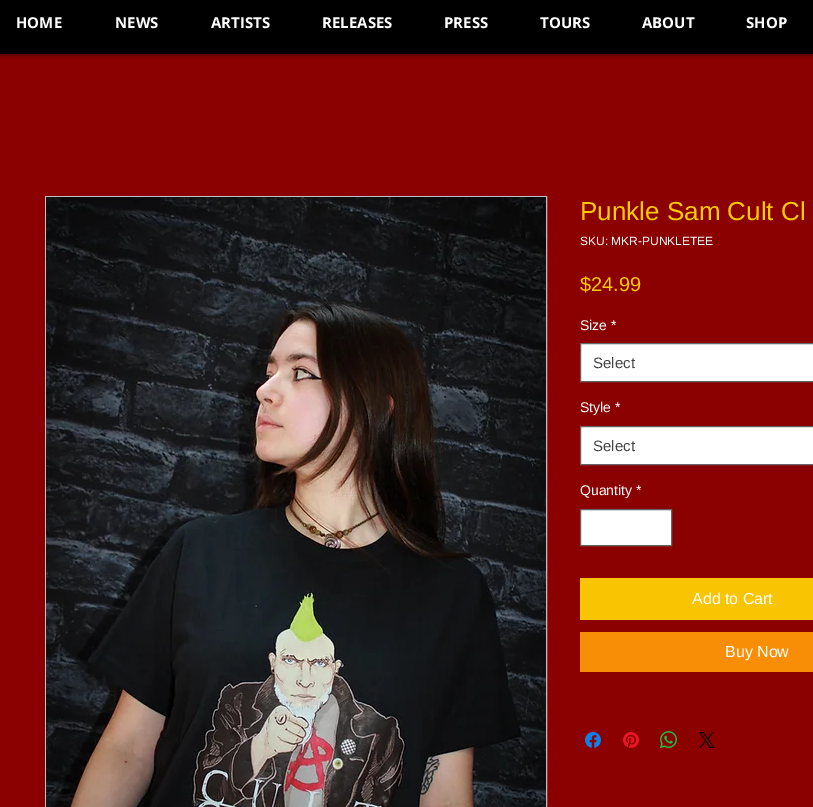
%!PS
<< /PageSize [813 807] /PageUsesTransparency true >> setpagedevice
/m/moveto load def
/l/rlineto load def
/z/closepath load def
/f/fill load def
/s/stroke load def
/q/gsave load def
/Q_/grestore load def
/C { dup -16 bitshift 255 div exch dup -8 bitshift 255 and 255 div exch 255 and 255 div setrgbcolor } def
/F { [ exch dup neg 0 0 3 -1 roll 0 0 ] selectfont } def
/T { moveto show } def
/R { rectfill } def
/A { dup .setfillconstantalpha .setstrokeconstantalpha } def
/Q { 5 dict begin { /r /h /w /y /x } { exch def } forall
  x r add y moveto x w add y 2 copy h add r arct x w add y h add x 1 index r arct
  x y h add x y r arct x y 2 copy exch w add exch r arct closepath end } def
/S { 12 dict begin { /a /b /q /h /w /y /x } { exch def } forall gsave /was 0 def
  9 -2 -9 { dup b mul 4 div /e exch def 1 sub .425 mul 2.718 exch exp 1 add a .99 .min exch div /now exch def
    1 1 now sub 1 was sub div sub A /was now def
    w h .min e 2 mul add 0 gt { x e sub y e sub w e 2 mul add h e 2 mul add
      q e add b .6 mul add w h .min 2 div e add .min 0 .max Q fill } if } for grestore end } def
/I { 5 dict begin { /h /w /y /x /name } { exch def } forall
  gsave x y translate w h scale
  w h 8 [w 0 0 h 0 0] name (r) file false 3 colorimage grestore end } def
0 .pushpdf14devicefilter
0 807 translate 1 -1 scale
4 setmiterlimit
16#8B0000 C
0 0 813 807 R
16#000000 C
0 0 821 54 0 2.5 .7 S
0 0 813 54 R
/OpenSans-Bold 15 F
16#FFFFFF C
(HOME) 16 28 T
(NEWS) 115 28 T
(ARTISTS) 211 28 T
(RELEASES) 322 28 T
(PRESS) 444 28 T
(TOURS) 540 28 T
(ABOUT) 642 28 T
(SHOP) 746 28 T
16#C0C0C0 C
45.5 196.5 501 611 rectstroke
(1.rgb) 46 197 500 610 I
/LiberationSans-Regular 26 F
16#FFCB05 C
(Punkle Sam Cult Cl) 580 220 T
/LiberationSans-Regular 12 F
16#FFFFFF C
(SKU: MKR-PUNKLETEE) 580 245 T
/LiberationSans-Regular 20 F
16#FFCB05 C
($24.99) 580 291 T
/LiberationSans-Regular 14 F
16#FFFFFF C
(Size *) 580 330 T
580.5 343.5 m 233 0 l 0 38 l -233 0 l z q f Q_
16#666666 C
s
/LiberationSans-Regular 15 F
16#444444 C
(Select) 593 368 T
/LiberationSans-Regular 14 F
16#FFFFFF C
(Style *) 580 412 T
580.5 426.5 m 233 0 l 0 38 l -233 0 l z q f Q_
16#666666 C
s
/LiberationSans-Regular 15 F
16#444444 C
(Select) 593 451 T
/LiberationSans-Regular 14 F
16#FFFFFF C
(Quantity *) 580 495 T
580.5 509.5 m 91 0 l 0 36 l -91 0 l z q f Q_
16#666666 C
s
16#F9C402 C
580 578 233 42 R
/LiberationSans-Regular 16 F
16#FFFFFF C
(Add to Cart) 692 604 T
16#F78E05 C
580 632 233 40 R
16#FFFFFF C
(Buy Now) 725 657 T
(2.rgb) 585 732 16 16 I
(3.rgb) 623 732 16 16 I
(4.rgb) 660 731 17 17 I
(5.rgb) 699 732 16 16 I
.poppdf14devicefilter showpage
